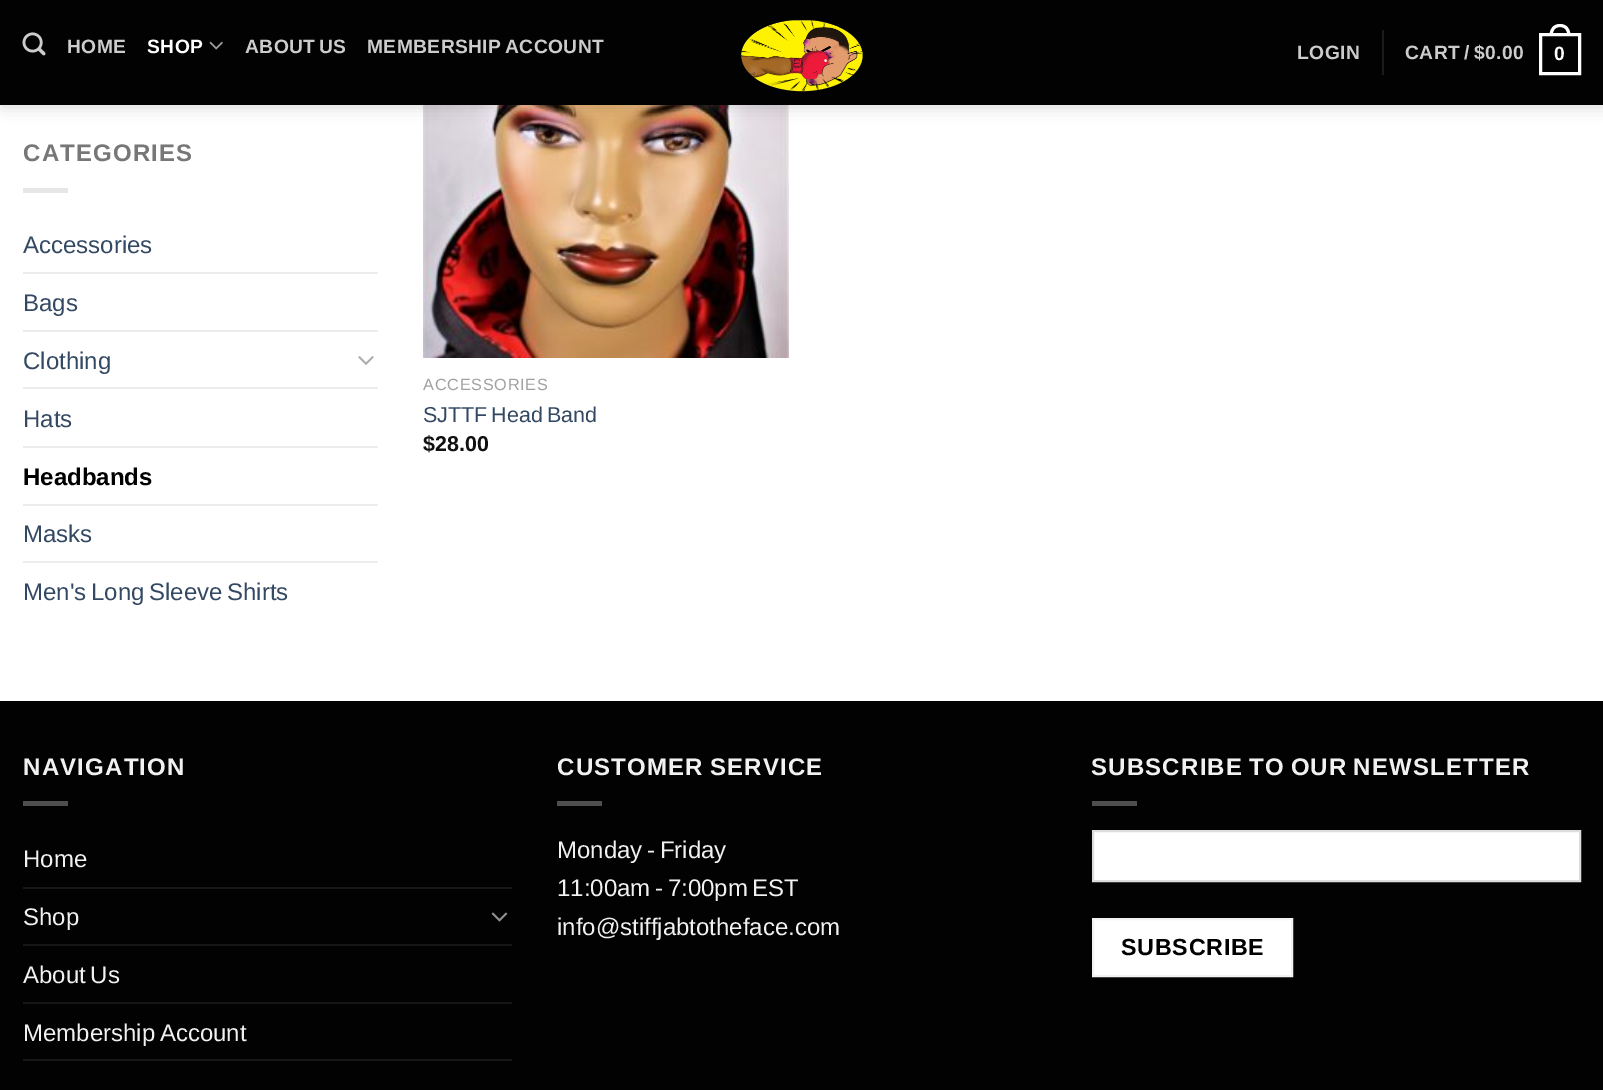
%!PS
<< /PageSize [1603 1090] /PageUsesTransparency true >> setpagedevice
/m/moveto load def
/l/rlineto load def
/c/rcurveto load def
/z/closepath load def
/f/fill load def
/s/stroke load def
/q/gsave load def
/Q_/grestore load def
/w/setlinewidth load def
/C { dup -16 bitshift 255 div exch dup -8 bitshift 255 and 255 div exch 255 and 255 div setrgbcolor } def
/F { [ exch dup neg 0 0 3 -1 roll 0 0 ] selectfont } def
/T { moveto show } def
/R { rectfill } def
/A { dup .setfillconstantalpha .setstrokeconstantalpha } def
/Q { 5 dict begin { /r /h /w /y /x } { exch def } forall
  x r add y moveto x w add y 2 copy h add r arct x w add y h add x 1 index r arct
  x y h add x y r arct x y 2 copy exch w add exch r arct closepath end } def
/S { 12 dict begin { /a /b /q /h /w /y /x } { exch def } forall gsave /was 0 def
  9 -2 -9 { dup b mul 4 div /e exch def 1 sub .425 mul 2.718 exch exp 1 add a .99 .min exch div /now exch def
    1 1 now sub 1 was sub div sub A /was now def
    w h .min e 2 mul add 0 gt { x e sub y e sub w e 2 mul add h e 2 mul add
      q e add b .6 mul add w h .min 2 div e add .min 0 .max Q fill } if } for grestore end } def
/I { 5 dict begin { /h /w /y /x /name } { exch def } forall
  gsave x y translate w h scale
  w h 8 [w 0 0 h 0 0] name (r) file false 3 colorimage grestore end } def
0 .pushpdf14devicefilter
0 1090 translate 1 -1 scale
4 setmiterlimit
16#FFFFFF C
0 0 1603 1090 R
(5.rgb) 423 105 366 253 I
16#000000 C
2 2 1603 105 0 7.5 .15 S
16#020202 C
0 0 1603 105 R
(1.rgb) 22 32 24 24 I
/LiberationSans-Bold 19.25 F
16#CCCCCC C
67 53 m .4 0 (HOME) ashow
16#FFFFFF C
147 53 m .4 0 (SHOP) ashow
(2.rgb) 209 41 14 9 I
16#CCCCCC C
245 53 m -2 0 32 .4 0 (ABOUT US) awidthshow
367 53 m -2 0 32 .4 0 (MEMBERSHIP ACCOUNT) awidthshow
(3.rgb) 741 20 122 72 I
1297 59 m .4 0 (LOGIN) ashow
16#1B1B1B C
1382 30 2 45 R
16#CCCCCC C
1405 59 m .4 0 (CART) ashow
1464 59 m .4 0 (/) ashow
1474 59 m .4 0 ($0.00) ashow
16#FFFFFF C
3 w
1540.5 34.5 39 39 rectstroke
1560 24 m 7 0 10.5 5.5 10.5 12 c -21 0 l 0 -6.5 3.5 -12 10.5 -12 c z 1560 27 m 5.5 0 7.5 4.5 7.5 9 c -15 0 l 0 -4.5 2 -9 7.5 -9 c z eofill
1554 60 m .4 0 (0) ashow
/LiberationSans-Bold 24 F
16#777777 C
23 161 m 1.2 0 (CATEGORIES) ashow
16#E6E6E6 C
23 188 45 5 R
/LiberationSans-Regular 24 F
16#334862 C
(Accessories) 23 253 T
16#ECECEC C
23 272 355 2 R
16#334862 C
(Bags) 23 311 T
16#ECECEC C
23 330 355 2 R
16#334862 C
(Clothing) 23 369 T
(4.rgb) 358 356 16 9 I
16#ECECEC C
23 387 355 2 R
16#334862 C
(Hats) 23 427 T
16#ECECEC C
23 446 355 2 R
/LiberationSans-Bold 24 F
16#000000 C
(Headbands) 23 485 T
16#ECECEC C
23 504 355 2 R
/LiberationSans-Regular 24 F
16#334862 C
(Masks) 23 542 T
16#ECECEC C
23 561 355 2 R
16#334862 C
23 600 m -2 0 32 (Men's Long Sleeve Shirts) widthshow
/LiberationSans-Regular 16.25 F
16#A0A0A0 C
423 390 m .75 0 (ACCESSORIES) ashow
/LiberationSans-Regular 21.5 F
16#334862 C
423 422 m -2 0 32 (SJTTF Head Band) widthshow
/LiberationSans-Bold 21.5 F
16#111111 C
($28.00) 423 451 T
16#020202 C
0 701 1603 389 R
/LiberationSans-Bold 24 F
16#F1F1F1 C
23 775 m 1.2 0 (NAVIGATION) ashow
16#4E4E4E C
23 801 45 5 R
/LiberationSans-Regular 24 F
16#F1F1F1 C
(Home) 23 867 T
16#161616 C
23 887 489 2 R
16#F1F1F1 C
(Shop) 23 925 T
(6.rgb) 491 912 17 10 I
16#161616 C
23 944 489 2 R
16#F1F1F1 C
23 983 m -2 0 32 (About Us) widthshow
16#161616 C
23 1002 489 2 R
16#F1F1F1 C
23 1041 m -2 0 32 (Membership Account) widthshow
16#161616 C
23 1059 489 2 R
/LiberationSans-Bold 24 F
16#F1F1F1 C
557 775 m -2 0 32 1.2 0 (CUSTOMER SERVICE) awidthshow
16#4E4E4E C
557 801 45 5 R
/LiberationSans-Regular 24 F
16#F1F1F1 C
557 858 m -2 0 32 (Monday - Friday) widthshow
557 896 m -2 0 32 (11:00am - 7:00pm EST) widthshow
(info@stiffjabtotheface.com) 557 935 T
/LiberationSans-Bold 24 F
1091 775 m -2 0 32 1.2 0 (SUBSCRIBE TO OUR NEWSLETTER) awidthshow
16#4E4E4E C
1092 801 45 5 R
16#FFFFFF C
1093 831 m 487 0 l 0 50 l -487 0 l z q f Q_
16#DDDDDD C
2 w
s
16#FFFFFF C
1093 919 m 199 0 l 0 57 l -199 0 l z q f Q_
16#F2F2F2 C
s
/LiberationSans-Bold 23.25 F
16#000000 C
1121 955 m .75 0 (SUBSCRIBE) ashow
.poppdf14devicefilter showpage
